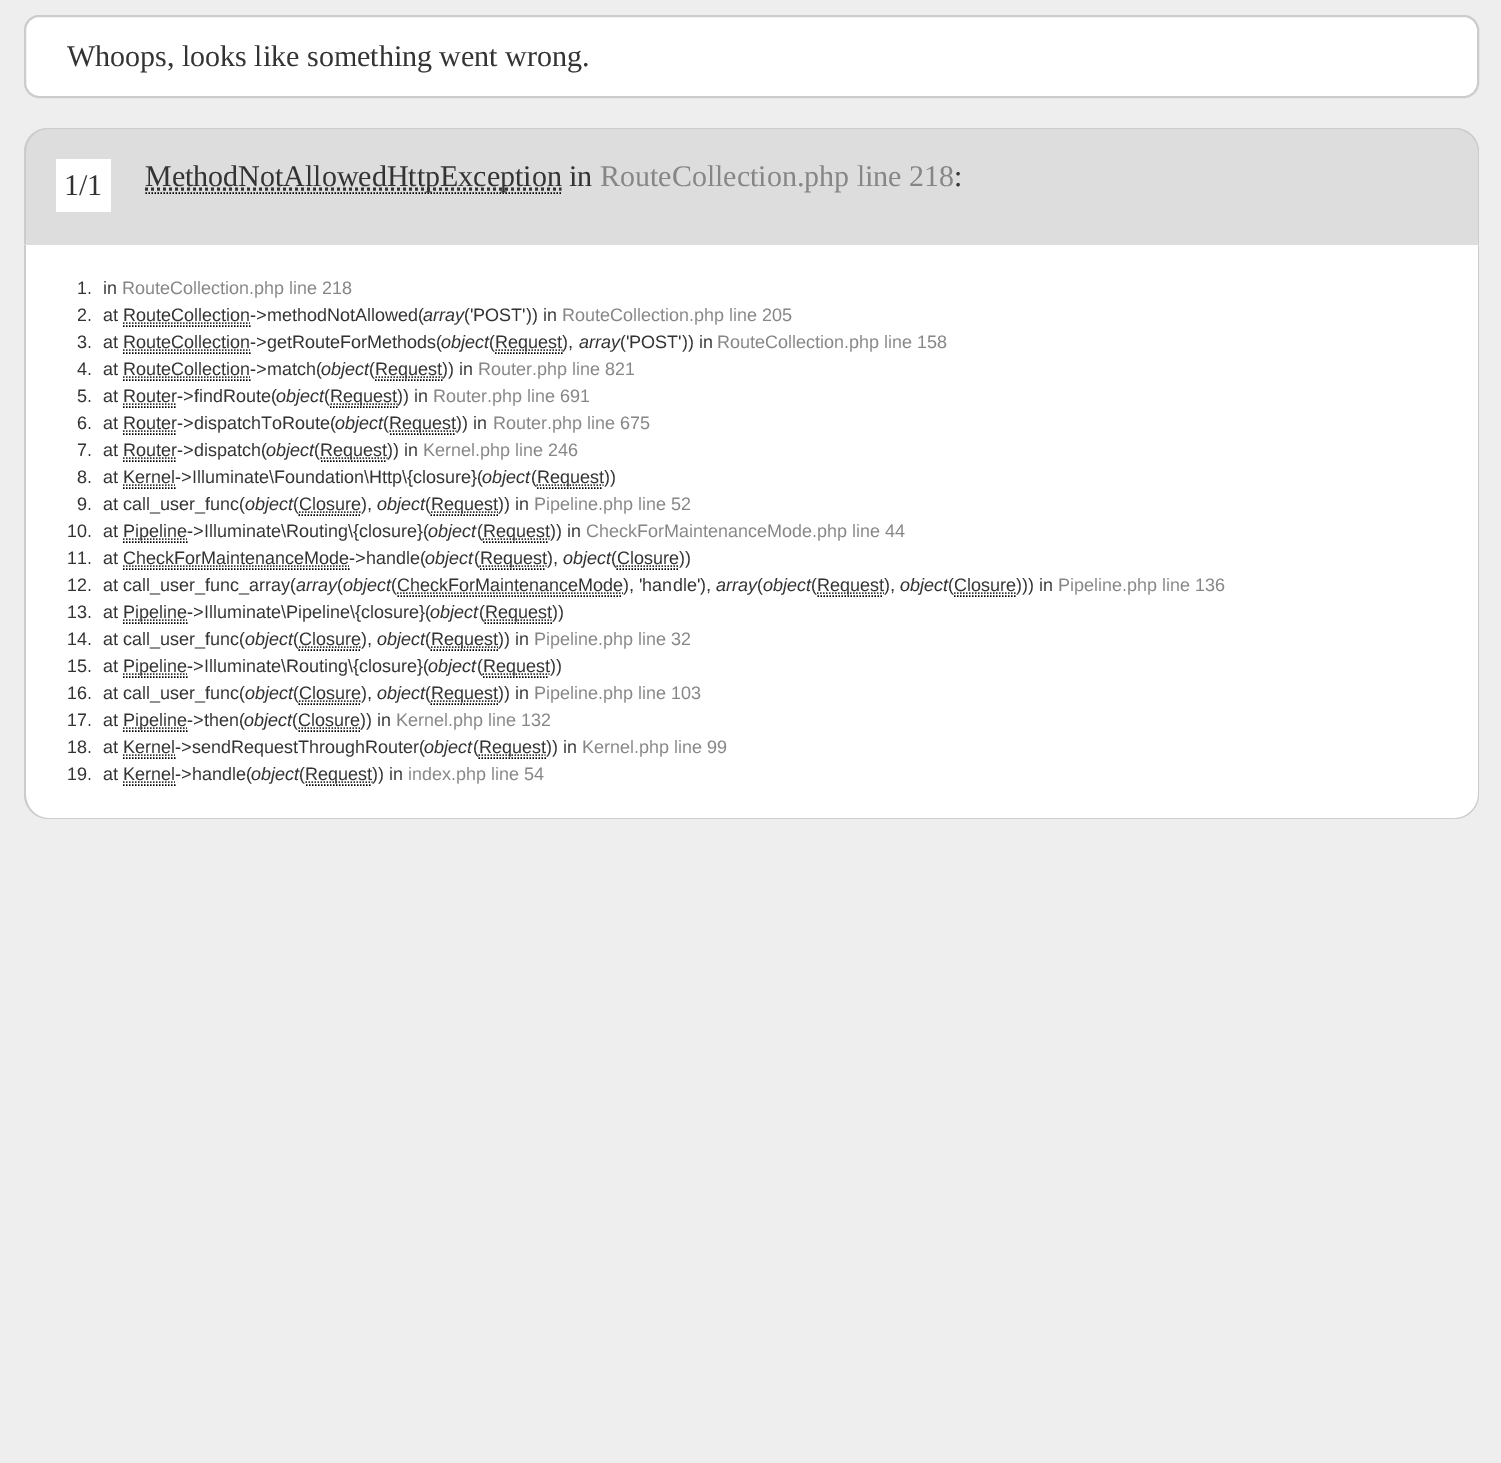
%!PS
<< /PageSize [1501 1463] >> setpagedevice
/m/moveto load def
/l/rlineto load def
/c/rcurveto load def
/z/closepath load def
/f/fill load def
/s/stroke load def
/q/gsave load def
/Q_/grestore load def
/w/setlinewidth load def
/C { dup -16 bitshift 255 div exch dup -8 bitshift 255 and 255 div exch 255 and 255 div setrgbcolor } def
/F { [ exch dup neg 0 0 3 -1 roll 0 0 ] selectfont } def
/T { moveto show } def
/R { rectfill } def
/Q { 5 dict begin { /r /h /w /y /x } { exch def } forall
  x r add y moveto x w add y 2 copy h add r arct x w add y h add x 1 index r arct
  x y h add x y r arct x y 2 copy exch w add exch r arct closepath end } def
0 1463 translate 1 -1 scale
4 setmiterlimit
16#EEEEEE C
0 0 1501 1463 R
16#FFFFFF C
25 16 1453 81 14 Q q f Q_
16#CCCCCC C
2 w
s
/LiberationSerif-Regular 30 F
16#333333 C
(Whoops, looks like something went wrong.) 67 66 T
16#FFFFFF C
24 245 m 1455 0 l 0 550 l 0 13.5 -10.5 24 -24 24 c -1407 0 l -13.5 0 -24 -10.5 -24 -24 c z f
16#CCCCCC C
24 244 m 1455 0 l 0 551 l 0 13 -11 24 -24 24 c -1407 0 l -13 0 -24 -11 -24 -24 c z 26 244 m 1452 0 l 0 551 l 0 12 -11 23 -23 23 c -1407 0 l -12 0 -22 -11 -22 -23 c z eofill
16#DDDDDD C
48 128 m 1407 0 l 13.5 0 24 10.5 24 24 c 0 93 l -1455 0 l 0 -93 l 0 -13.5 10.5 -24 24 -24 c z f
16#CCCCCC C
48 128 m 1407 0 l 13 0 24 10 24 24 c 0 92 l -1455 0 l 0 -92 l 0 -14 11 -24 24 -24 c z 48 129 m 1407 0 l 12 0 23 10 23 23 c 0 92 l -1452 0 l 0 -92 l 0 -13 10 -23 22 -23 c z eofill
16#FFFFFF C
56 159 55 53 R
16#333333 C
(1/1) 64 195 T
16#000000 C
1.5 w
[1.5 1.5] 0 setdash
145.5 193 m 415.5 0 l s
16#333333 C
3 w
[3 3] 0 setdash
145 189 m 416.5 0 l s
(MethodNotAllowedHttpException in) 145 186 T
16#868686 C
(RouteCollection.php line 218) 600 186 T
16#333333 C
(:) 954 186 T
/LiberationSans-Regular 18 F
(1.) 77 294 T
(in) 103 294 T
16#868686 C
(RouteCollection.php line 218) 122 294 T
16#333333 C
(2.) 77 321 T
(at RouteCollection->methodNotAllowed\() 103 321 T
/LiberationSans-Italic 18 F
(array) 423 321 T
/LiberationSans-Regular 18 F
(\('POST'\)\) in) 464 321 T
16#868686 C
(RouteCollection.php line 205) 562 321 T
16#333333 C
1.5 w
[1.5 1.5] 0 setdash
123 323 m 127 0 l s
16#000000 C
123 326 m 127.5 0 l s
16#333333 C
(3.) 77 348 T
(at RouteCollection->getRouteForMethods\() 103 348 T
/LiberationSans-Italic 18 F
(object) 441 348 T
/LiberationSans-Regular 18 F
(\() 489 348 T
495.5 350 m 67 0 l s
(Request\),) 495 348 T
16#000000 C
495 353 m 67.5 0 l s
/LiberationSans-Italic 18 F
16#333333 C
(array) 579 348 T
/LiberationSans-Regular 18 F
(\('POST'\)\) in) 620 348 T
16#868686 C
(RouteCollection.php line 158) 717 348 T
16#333333 C
123 350 m 127 0 l s
16#000000 C
123 353 m 127.5 0 l s
16#333333 C
(4.) 77 375 T
(at RouteCollection->match\() 103 375 T
/LiberationSans-Italic 18 F
(object) 321 375 T
/LiberationSans-Regular 18 F
(\() 369 375 T
375.5 377 m 67 0 l s
(Request\)\) in) 375 375 T
16#000000 C
375 380 m 67.5 0 l s
16#868686 C
(Router.php line 821) 478 375 T
16#333333 C
123 377 m 127 0 l s
16#000000 C
123 380 m 127.5 0 l s
16#333333 C
(5.) 77 402 T
(at Router->findRoute\() 103 402 T
/LiberationSans-Italic 18 F
(object) 276 402 T
/LiberationSans-Regular 18 F
(\() 324 402 T
330.5 404 m 67 0 l s
(Request\)\) in) 330 402 T
16#000000 C
330 407 m 67.5 0 l s
16#868686 C
(Router.php line 691) 433 402 T
16#333333 C
123 404 m 54 0 l s
16#000000 C
123 407 m 54 0 l s
16#333333 C
(6.) 77 429 T
(at Router->dispatchToRoute\() 103 429 T
/LiberationSans-Italic 18 F
(object) 335 429 T
/LiberationSans-Regular 18 F
(\() 383 429 T
389.5 431 m 67 0 l s
(Request\)\) in) 389 429 T
16#000000 C
390 434 m 66 0 l s
16#868686 C
(Router.php line 675) 493 429 T
16#333333 C
123 431 m 54 0 l s
16#000000 C
123 434 m 54 0 l s
16#333333 C
(7.) 77 456 T
(at Router->dispatch\() 103 456 T
/LiberationSans-Italic 18 F
(object) 266 456 T
/LiberationSans-Regular 18 F
(\() 314 456 T
320.5 458 m 67 0 l s
(Request\)\) in) 320 456 T
16#000000 C
321 461 m 66 0 l s
16#868686 C
(Kernel.php line 246) 423 456 T
16#333333 C
123 458 m 54 0 l s
16#000000 C
123 461 m 54 0 l s
16#333333 C
(8.) 77 483 T
(at Kernel->Illuminate\\Foundation\\Http\\{closure}\() 103 483 T
/LiberationSans-Italic 18 F
(object) 482 483 T
/LiberationSans-Regular 18 F
(\() 531 483 T
536.5 485 m 67 0 l s
(Request\)\)) 537 483 T
16#000000 C
537 488 m 66 0 l s
16#333333 C
123 485 m 52 0 l s
16#000000 C
123 488 m 52.5 0 l s
16#333333 C
(9.) 77 510 T
(at call_user_func\() 103 510 T
/LiberationSans-Italic 18 F
(object) 245 510 T
/LiberationSans-Regular 18 F
(\(Closure\),) 293 510 T
/LiberationSans-Italic 18 F
(object) 377 510 T
/LiberationSans-Regular 18 F
(\() 425 510 T
431 512 m 67 0 l s
(Request\)\) in) 431 510 T
16#000000 C
430.5 515 m 67.5 0 l s
16#868686 C
(Pipeline.php line 52) 534 510 T
16#333333 C
299 512 m 62 0 l s
16#000000 C
298.5 515 m 63 0 l s
16#333333 C
(10.) 67 537 T
(at) 103 537 T
123 539 m 64 0 l s
(Pipeline->Illuminate\\Routing\\{closure}\() 123 537 T
16#000000 C
123 542 m 64.5 0 l s
/LiberationSans-Italic 18 F
16#333333 C
(object) 428 537 T
/LiberationSans-Regular 18 F
(\() 477 537 T
482.5 539 m 67 0 l s
(Request\)\) in) 483 537 T
16#000000 C
483 542 m 66 0 l s
16#868686 C
(CheckForMaintenanceMode.php line 44) 586 537 T
16#333333 C
(11.) 67 564 T
(at CheckForMaintenanceMode->handle\() 103 564 T
/LiberationSans-Italic 18 F
(object) 425 564 T
/LiberationSans-Regular 18 F
(\() 474 564 T
479.5 566 m 67 0 l s
(Request\),) 480 564 T
16#000000 C
480 569 m 66 0 l s
/LiberationSans-Italic 18 F
16#333333 C
(object) 563 564 T
/LiberationSans-Regular 18 F
(\(Closure\)\)) 611 564 T
123 566 m 226 0 l s
616.5 566 m 62 0 l s
16#000000 C
123 569 m 226.5 0 l s
616.5 569 m 61.5 0 l s
16#333333 C
(12.) 67 591 T
(at call_user_func_array\() 103 591 T
/LiberationSans-Italic 18 F
(array) 296 591 T
/LiberationSans-Regular 18 F
(\() 337 591 T
/LiberationSans-Italic 18 F
(object) 343 591 T
/LiberationSans-Regular 18 F
(\(CheckForMaintenanceMode\), 'handle'\),) 391 591 T
/LiberationSans-Italic 18 F
(array) 716 591 T
/LiberationSans-Regular 18 F
(\() 757 591 T
/LiberationSans-Italic 18 F
(object) 763 591 T
/LiberationSans-Regular 18 F
(\() 811 591 T
817 593 m 67 0 l s
(Request\),) 817 591 T
16#000000 C
817.5 596 m 66 0 l s
/LiberationSans-Italic 18 F
16#333333 C
(object) 900 591 T
/LiberationSans-Regular 18 F
(\(Closure\)\)\) in) 948 591 T
16#868686 C
(Pipeline.php line 136) 1058 591 T
16#333333 C
397 593 m 226 0 l s
954 593 m 62 0 l s
16#000000 C
397.5 596 m 225 0 l s
954 596 m 61.5 0 l s
16#333333 C
(13.) 67 618 T
(at) 103 618 T
123 620 m 64 0 l s
(Pipeline->Illuminate\\Pipeline\\{closure}\() 123 618 T
16#000000 C
123 623 m 64.5 0 l s
/LiberationSans-Italic 18 F
16#333333 C
(object) 430 618 T
/LiberationSans-Regular 18 F
(\() 479 618 T
484.5 620 m 67 0 l s
(Request\)\)) 485 618 T
16#000000 C
484.5 623 m 67.5 0 l s
16#333333 C
(14.) 67 645 T
(at call_user_func\() 103 645 T
/LiberationSans-Italic 18 F
(object) 245 645 T
/LiberationSans-Regular 18 F
(\(Closure\),) 293 645 T
/LiberationSans-Italic 18 F
(object) 377 645 T
/LiberationSans-Regular 18 F
(\() 425 645 T
431 647 m 67 0 l s
(Request\)\) in) 431 645 T
16#000000 C
430.5 650 m 67.5 0 l s
16#868686 C
(Pipeline.php line 32) 534 645 T
16#333333 C
299 647 m 62 0 l s
16#000000 C
298.5 650 m 63 0 l s
16#333333 C
(15.) 67 672 T
(at) 103 672 T
123 674 m 64 0 l s
(Pipeline->Illuminate\\Routing\\{closure}\() 123 672 T
16#000000 C
123 677 m 64.5 0 l s
/LiberationSans-Italic 18 F
16#333333 C
(object) 428 672 T
/LiberationSans-Regular 18 F
(\() 477 672 T
482.5 674 m 67 0 l s
(Request\)\)) 483 672 T
16#000000 C
483 677 m 66 0 l s
16#333333 C
(16.) 67 699 T
(at call_user_func\() 103 699 T
/LiberationSans-Italic 18 F
(object) 245 699 T
/LiberationSans-Regular 18 F
(\(Closure\),) 293 699 T
/LiberationSans-Italic 18 F
(object) 377 699 T
/LiberationSans-Regular 18 F
(\() 425 699 T
431 701 m 67 0 l s
(Request\)\) in) 431 699 T
16#000000 C
430.5 704 m 67.5 0 l s
16#868686 C
(Pipeline.php line 103) 534 699 T
16#333333 C
299 701 m 62 0 l s
16#000000 C
298.5 704 m 63 0 l s
16#333333 C
(17.) 67 726 T
(at) 103 726 T
123 728 m 64 0 l s
(Pipeline->then\() 123 726 T
16#000000 C
123 731 m 64.5 0 l s
/LiberationSans-Italic 18 F
16#333333 C
(object) 244 726 T
/LiberationSans-Regular 18 F
(\(Closure\)\) in) 292 726 T
16#868686 C
(Kernel.php line 132) 396 726 T
16#333333 C
298.5 728 m 62 0 l s
16#000000 C
298.5 731 m 61.5 0 l s
16#333333 C
(18.) 67 753 T
(at Kernel->sendRequestThroughRouter\() 103 753 T
/LiberationSans-Italic 18 F
(object) 424 753 T
/LiberationSans-Regular 18 F
(\() 473 753 T
478.5 755 m 67 0 l s
(Request\)\) in) 479 753 T
16#000000 C
478.5 758 m 67.5 0 l s
16#868686 C
(Kernel.php line 99) 582 753 T
16#333333 C
123 755 m 52 0 l s
16#000000 C
123 758 m 52.5 0 l s
16#333333 C
(19.) 67 780 T
(at Kernel->handle\() 103 780 T
/LiberationSans-Italic 18 F
(object) 251 780 T
/LiberationSans-Regular 18 F
(\() 299 780 T
305.5 782 m 67 0 l s
(Request\)\) in) 305 780 T
16#000000 C
306 785 m 66 0 l s
16#868686 C
(index.php line 54) 408 780 T
16#333333 C
123 782 m 52 0 l s
16#000000 C
123 785 m 52.5 0 l s
showpage
